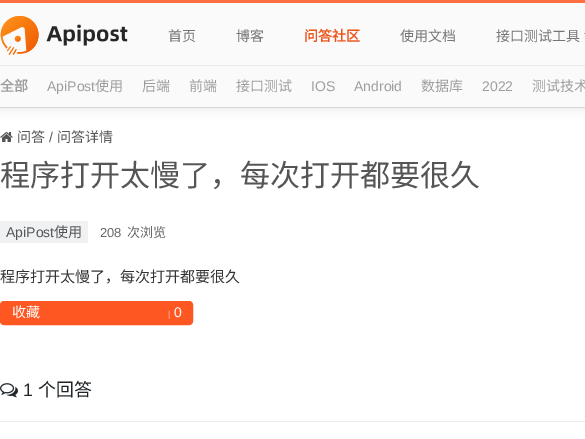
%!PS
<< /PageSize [585 439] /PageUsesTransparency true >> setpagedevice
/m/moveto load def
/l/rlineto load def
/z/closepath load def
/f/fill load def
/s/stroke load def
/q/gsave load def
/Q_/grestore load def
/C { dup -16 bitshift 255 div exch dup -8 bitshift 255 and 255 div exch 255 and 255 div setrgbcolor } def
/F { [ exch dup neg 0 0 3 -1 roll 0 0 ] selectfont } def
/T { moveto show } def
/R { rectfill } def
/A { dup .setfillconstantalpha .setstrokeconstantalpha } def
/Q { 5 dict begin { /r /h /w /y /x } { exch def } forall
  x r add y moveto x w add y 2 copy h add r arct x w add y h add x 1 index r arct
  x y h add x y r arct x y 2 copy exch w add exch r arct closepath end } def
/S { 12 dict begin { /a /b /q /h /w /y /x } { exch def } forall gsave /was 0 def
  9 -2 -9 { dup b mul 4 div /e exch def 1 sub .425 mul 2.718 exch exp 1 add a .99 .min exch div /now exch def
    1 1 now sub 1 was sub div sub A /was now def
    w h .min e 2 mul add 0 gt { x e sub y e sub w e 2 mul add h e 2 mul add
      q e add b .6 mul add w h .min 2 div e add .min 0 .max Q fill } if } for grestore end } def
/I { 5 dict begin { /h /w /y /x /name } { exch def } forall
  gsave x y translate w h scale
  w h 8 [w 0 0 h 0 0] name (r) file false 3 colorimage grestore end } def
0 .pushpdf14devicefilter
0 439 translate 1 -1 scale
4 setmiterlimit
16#FFFFFF C
0 0 585 439 R
16#E6E6E6 C
0 107 585 1 R
16#000000 C
0 2 585 107 0 5 .1 S
16#FAFAFA C
0 3 585 104 R
16#FE6E40 C
0 0 585 3 R
16#E9ECEF C
0 65 585 1 R
(1.rgb) 0 16 128 39 I
/NotoSansCJKSC-Regular 14 F
16#757575 C
(首页) 168 41 T
(博客) 236 41 T
/NotoSansCJKSC-Bold 14 F
16#EC541B C
(问答社区) 304 41 T
/NotoSansCJKSC-Regular 14 F
16#757575 C
(使用文档) 400 41 T
(接口测试工具) 496 41 T
584 33 m 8 0 l -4 4 l z f
/NotoSansCJKSC-Bold 14 F
16#9E9E9E C
(全部) 0 91 T
/LiberationSans-Regular 14 F
(ApiPost) 47 91 T
/NotoSansCJKSC-Regular 14 F
(使用) 95 91 T
(后端) 142 91 T
(前端) 189 91 T
(接口测试) 236 91 T
/LiberationSans-Regular 14 F
(IOS) 311 91 T
(Android) 354 91 T
/NotoSansCJKSC-Regular 14 F
(数据库) 421 91 T
/LiberationSans-Regular 14 F
(2022) 482 91 T
/NotoSansCJKSC-Regular 14 F
(测试技术) 532 91 T
(2.rgb) 0 132 13 10 I
16#555555 C
(问答) 17 142 T
/LiberationSans-Regular 14 F
(/) 49 142 T
/NotoSansCJKSC-Regular 14 F
(问答详情) 57 142 T
/NotoSansCJKSC-Regular 30 F
(程序打开太慢了，每次打开都要很久) 0 186 T
16#EFF1F3 C
0 221 88 22 R
/LiberationSans-Regular 14 F
16#555555 C
(ApiPost) 6 237 T
/NotoSansCJKSC-Regular 14 F
(使用) 54 237 T
/LiberationSans-Regular 13 F
16#666666 C
(208) 100 237 T
/NotoSansCJKSC-Regular 13 F
(次浏览) 127 237 T
/NotoSansCJKSC-Regular 15 F
16#333333 C
(程序打开太慢了，每次打开都要很久) 0 282 T
16#FF5722 C
.5 301.5 192 23 3.5 Q q f Q_
s
/NotoSansCJKSC-Regular 14 F
16#FFFFFF C
(收藏) 12 317 T
/LiberationSans-Regular 9 F
16#FBB8A4 C
(|) 168 317 T
/LiberationSans-Regular 14 F
16#FFFFFF C
(0) 174 317 T
16#E9ECEF C
0 421 585 1 R
(3.rgb) 0 383 18 15 I
/LiberationSans-Regular 18 F
16#212529 C
(1) 23 396 T
/NotoSansCJKSC-Regular 18 F
(个回答) 38 396 T
.poppdf14devicefilter showpage
